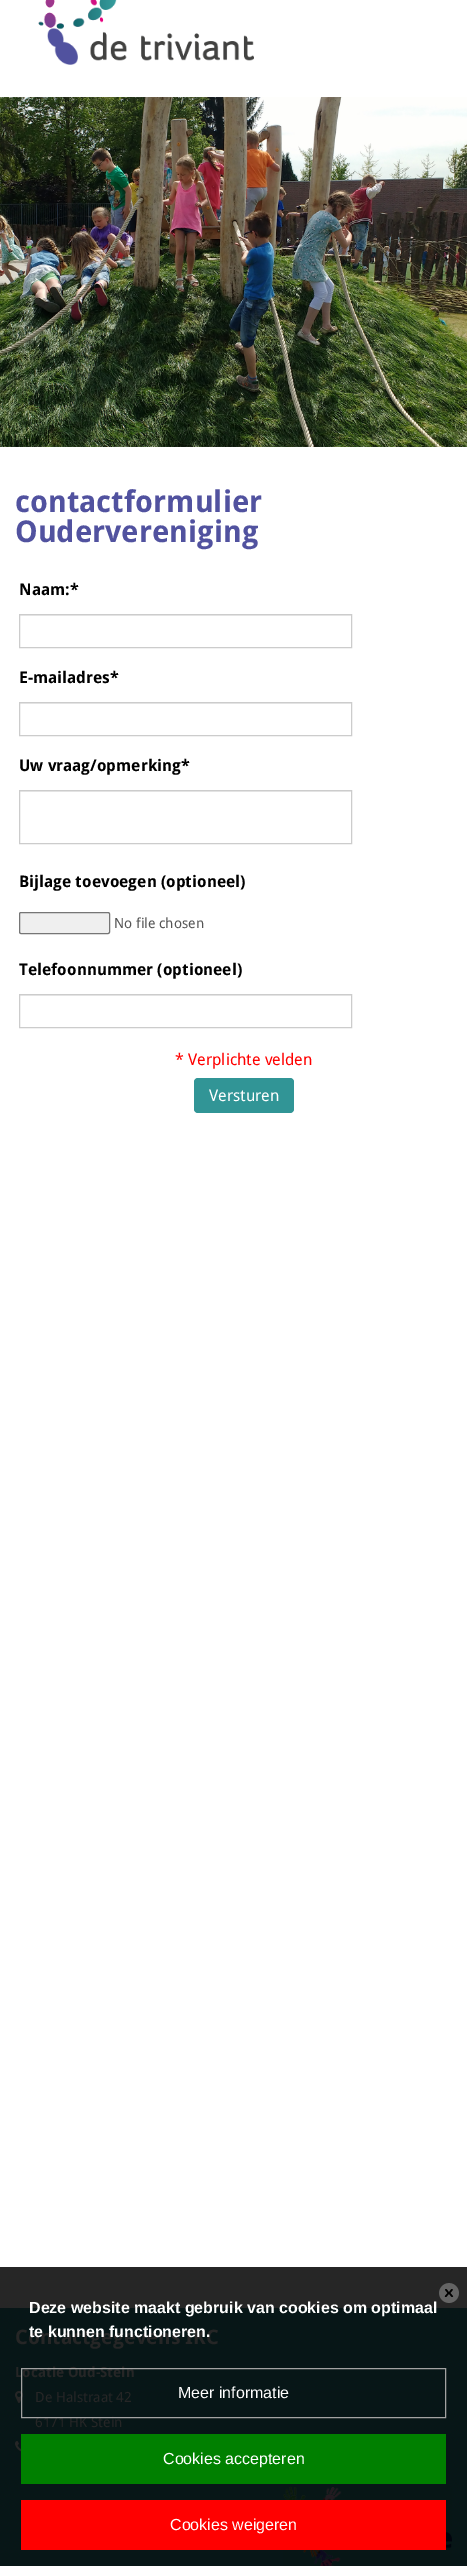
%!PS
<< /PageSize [467 2566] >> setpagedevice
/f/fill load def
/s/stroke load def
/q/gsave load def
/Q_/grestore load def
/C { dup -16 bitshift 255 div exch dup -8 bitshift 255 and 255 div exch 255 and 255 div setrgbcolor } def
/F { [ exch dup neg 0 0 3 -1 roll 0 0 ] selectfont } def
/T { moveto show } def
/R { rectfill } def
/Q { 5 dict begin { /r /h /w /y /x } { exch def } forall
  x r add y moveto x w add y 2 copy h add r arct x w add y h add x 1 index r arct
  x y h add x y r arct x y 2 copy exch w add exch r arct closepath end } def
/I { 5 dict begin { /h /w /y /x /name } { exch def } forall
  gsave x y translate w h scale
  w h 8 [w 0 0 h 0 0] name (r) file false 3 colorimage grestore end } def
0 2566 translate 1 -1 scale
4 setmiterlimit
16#FFFFFF C
0 0 467 2566 R
16#262626 C
0 2267 467 41 R
(1.rgb) 38 0 216 65 I
(2.rgb) 0 97 467 350 I
/DroidSans-Bold 30 F
16#51529F C
(contactformulier) 15 512 T
(Oudervereniging) 15 542 T
/DroidSans-Bold 16 F
16#000000 C
(Naam:*) 19 595 T
16#ECECEC C
20 615 331 1 R
16#CCCCCC C
19.5 614.5 332 33 rectstroke
16#000000 C
(E-mailadres*) 19 683 T
16#ECECEC C
20 703 331 1 R
16#CCCCCC C
19.5 702.5 332 33 rectstroke
16#000000 C
(Uw vraag/opmerking*) 19 771 T
16#ECECEC C
20 791 331 1 R
16#CCCCCC C
19.5 790.5 332 53 rectstroke
16#000000 C
(Bijlage toevoegen \(optioneel\)) 19 887 T
16#EFEFEF C
19.5 912.5 90 21 1.5 Q q f Q_
16#767676 C
s
/DroidSans-Regular 14 F
16#555555 C
(No file chosen) 114 928 T
/DroidSans-Bold 16 F
16#000000 C
(Telefoonnummer \(optioneel\)) 19 975 T
16#ECECEC C
20 995 331 1 R
16#CCCCCC C
19.5 994.5 332 33 rectstroke
/DroidSans-Regular 16 F
16#FF0000 C
(* Verplichte velden) 175 1065 T
16#319596 C
194 1078 100 35 4 Q f
16#FFFFFF C
(Versturen) 209 1101 T
(3.rgb) 439 2283 20 20 I
16#071617 C
0 2308 467 258 R
/LiberationSans-Bold 16 F
16#FFFFFF C
(Deze website maakt gebruik van cookies om optimaal) 29 2313 T
/DroidSans-Bold 20 F
16#262626 C
(Contactgegevens IKC) 15 2344 T
/LiberationSans-Bold 16 F
16#FFFFFF C
(te kunnen functioneren.) 29 2337 T
/DroidSans-Bold 14 F
16#262626 C
(Locatie Oud-Stein) 15 2377 T
(4.rgb) 15 2391 8 12 I
/DroidSans-Regular 14 F
(6171 HK Stein) 35 2427 T
16#A2A2A2 C
21.5 2368.5 424 49 rectstroke
/LiberationSans-Regular 16 F
16#FFFFFF C
(Meer informatie) 178 2398 T
16#008000 C
21 2434 425 50 R
16#FFFFFF C
(Cookies accepteren) 163 2464 T
(6.rgb) 283 2486 169 80 I
16#FF0000 C
21 2500 425 50 R
16#FFFFFF C
(Cookies weigeren) 170 2530 T
/DroidSans-Regular 14 F
16#262626 C
(De Halstraat 42) 35 2402 T
(5.rgb) 15 2441 6 11 I
showpage
